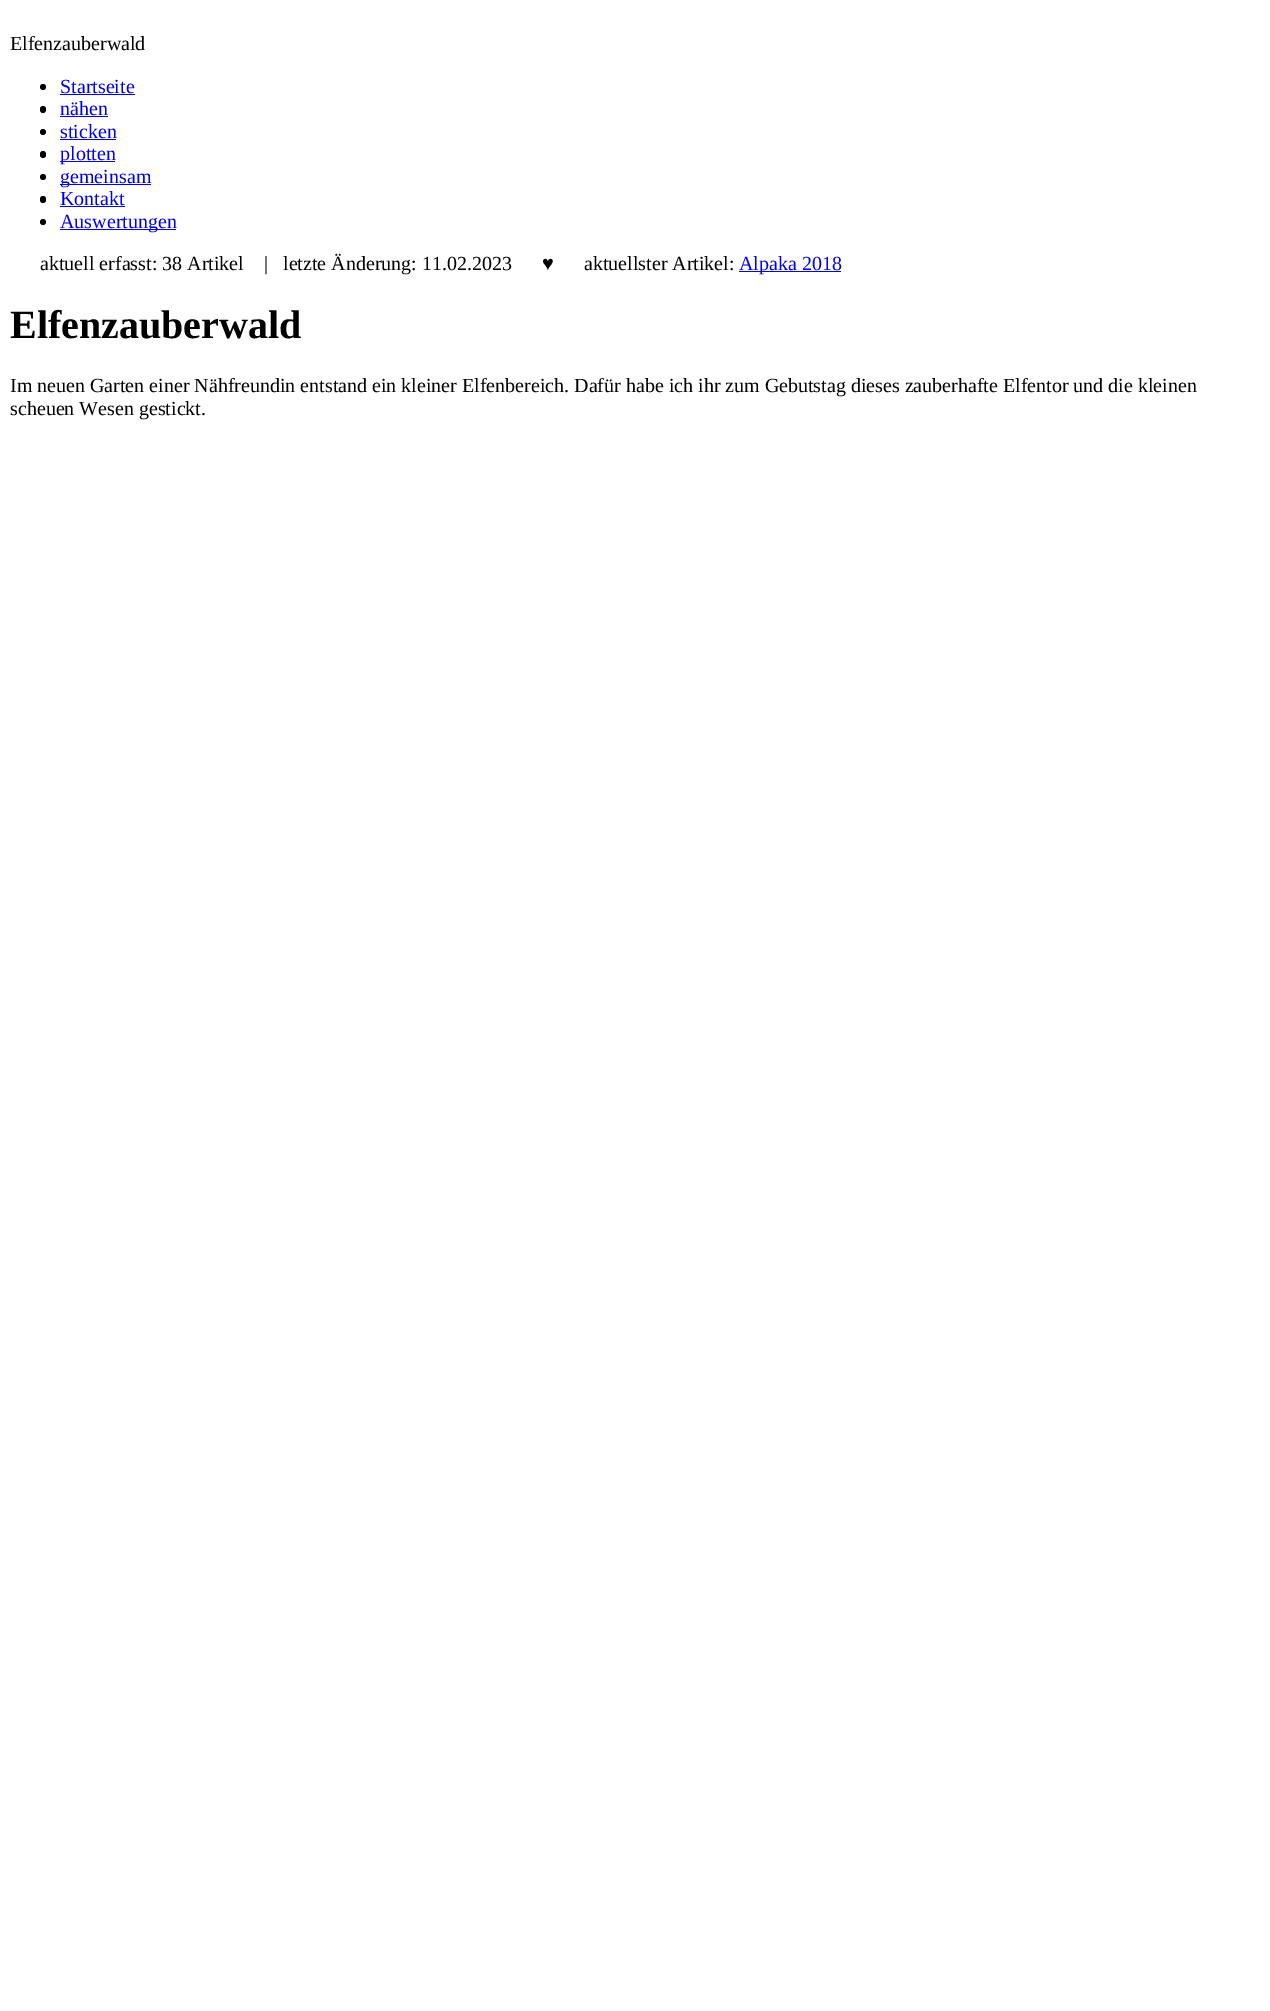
%!PS
<< /PageSize [1270 2011] >> setpagedevice
/f/fill load def
/C { dup -16 bitshift 255 div exch dup -8 bitshift 255 and 255 div exch 255 and 255 div setrgbcolor } def
/F { [ exch dup neg 0 0 3 -1 roll 0 0 ] selectfont } def
/T { moveto show } def
/R { rectfill } def
/O { newpath 0 360 arc closepath } def
/Q { 5 dict begin { /r /h /w /y /x } { exch def } forall
  x r add y moveto x w add y 2 copy h add r arct x w add y h add x 1 index r arct
  x y h add x y r arct x y 2 copy exch w add exch r arct closepath end } def
0 2011 translate 1 -1 scale
4 setmiterlimit
16#FFFFFF C
0 0 1270 2011 R
/LiberationSerif-Regular 20 F
16#000000 C
(Elfenzauberwald) 10 50 T
43 87 3 O f
16#0000EE C
(Startseite) 60 93 T
60 94 75 1 R
16#000000 C
40 106 6 7 3 Q f
16#0000EE C
(nähen) 60 115 T
60 116 48 1 R
16#000000 C
43 132 3 O f
16#0000EE C
(sticken) 60 138 T
60 139 56 1 R
16#000000 C
40 151 6 7 3 Q f
16#0000EE C
60 161 55 1 R
(plotten) 60 160 T
16#000000 C
43 177 3 O f
16#0000EE C
60 184 91 1 R
(gemeinsam) 60 183 T
16#000000 C
40 196 6 7 3 Q f
16#0000EE C
(Kontakt) 60 205 T
60 206 65 1 R
16#000000 C
43 222 3 O f
16#0000EE C
60 229 116 1 R
(Auswertungen) 60 228 T
16#000000 C
(aktuell erfasst: 38 Artikel) 40 270 T
(|   letzte Änderung: 11.02.2023) 264 270 T
(♥) 542 270 T
(aktuellster Artikel:) 584 270 T
16#0000EE C
739 271 102 1 R
(Alpaka 2018) 739 270 T
/LiberationSerif-Bold 40 F
16#000000 C
(Elfenzauberwald) 10 338 T
/LiberationSerif-Regular 20 F
(Im neuen Garten einer Nähfreundin entstand ein kleiner Elfenbereich. Dafür habe ich ihr zum Gebutstag dieses zauberhafte Elfentor und die kleinen) 10 392 T
(scheuen Wesen gestickt.) 10 415 T
showpage
